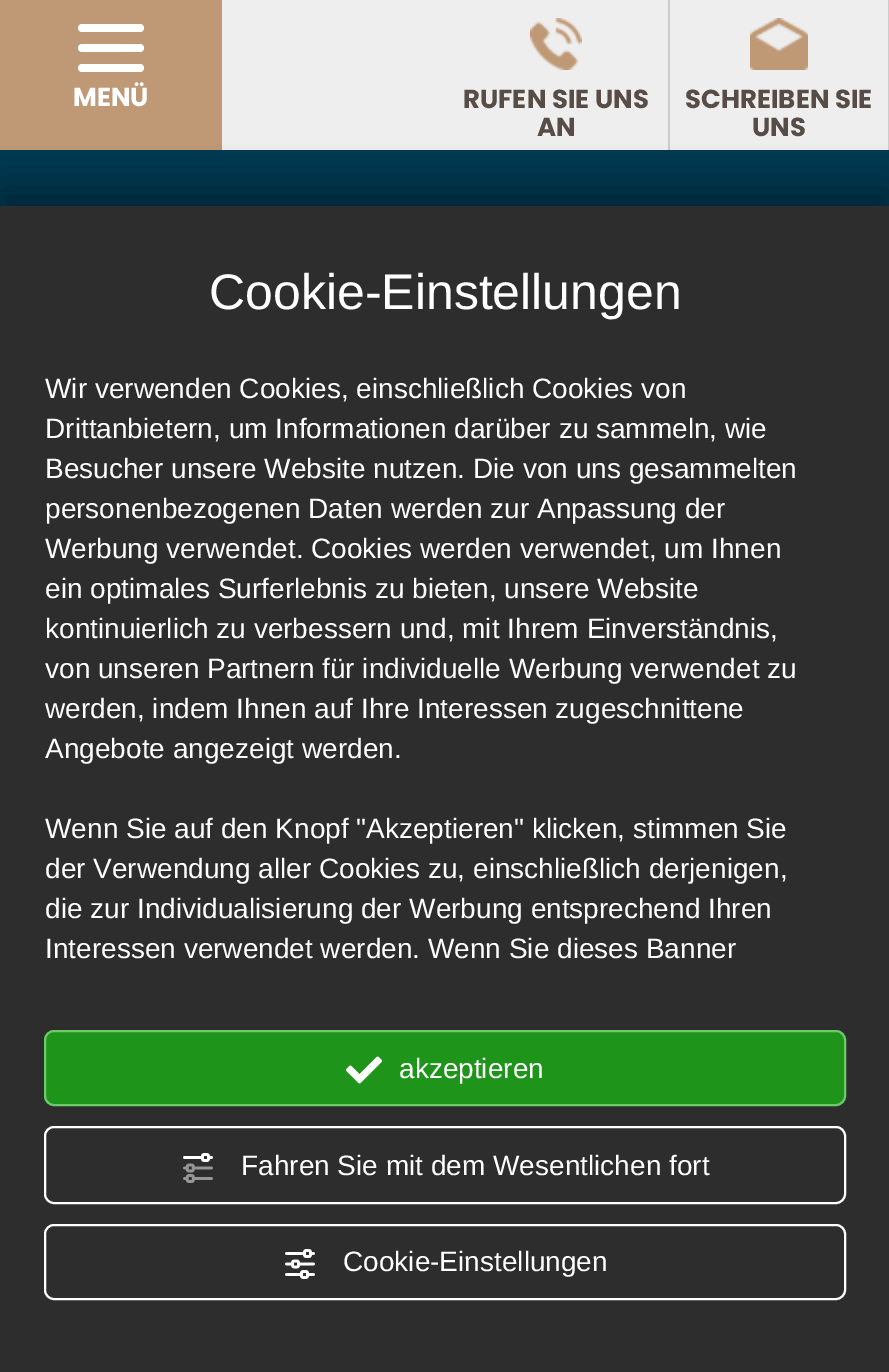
%!PS
<< /PageSize [889 1372] /PageUsesTransparency true >> setpagedevice
/f/fill load def
/s/stroke load def
/q/gsave load def
/Q_/grestore load def
/w/setlinewidth load def
/C { dup -16 bitshift 255 div exch dup -8 bitshift 255 and 255 div exch 255 and 255 div setrgbcolor } def
/F { [ exch dup neg 0 0 3 -1 roll 0 0 ] selectfont } def
/T { moveto show } def
/R { rectfill } def
/A { dup .setfillconstantalpha .setstrokeconstantalpha } def
/Q { 5 dict begin { /r /h /w /y /x } { exch def } forall
  x r add y moveto x w add y 2 copy h add r arct x w add y h add x 1 index r arct
  x y h add x y r arct x y 2 copy exch w add exch r arct closepath end } def
/S { 12 dict begin { /a /b /q /h /w /y /x } { exch def } forall gsave /was 0 def
  9 -2 -9 { dup b mul 4 div /e exch def 1 sub .425 mul 2.718 exch exp 1 add a .99 .min exch div /now exch def
    1 1 now sub 1 was sub div sub A /was now def
    w h .min e 2 mul add 0 gt { x e sub y e sub w e 2 mul add h e 2 mul add
      q e add b .6 mul add w h .min 2 div e add .min 0 .max Q fill } if } for grestore end } def
/I { 5 dict begin { /h /w /y /x /name } { exch def } forall
  gsave x y translate w h scale
  w h 8 [w 0 0 h 0 0] name (r) file false 3 colorimage grestore end } def
0 .pushpdf14devicefilter
0 1372 translate 1 -1 scale
4 setmiterlimit
16#003A51 C
0 0 889 1372 R
16#EEEEEE C
222 0 666 150 R
16#BF9975 C
0 0 222 150 R
16#FFFFFF C
78 24 66 8 4 Q f
78 44 66 8 4 Q f
78 64 66 8 4 Q f
/Poppins-Bold 26 F
(MENÜ) 73 106 T
(1.rgb) 530 18 52 52 I
16#584D46 C
(RUFEN SIE UNS) 463 108 T
(AN) 537 136 T
16#CCCCCC C
888 0 1 150 R
668 0 2 150 R
(2.rgb) 750 18 58 52 I
16#584D46 C
(SCHREIBEN SIE) 685 108 T
(UNS) 752 136 T
16#000000 C
0 190 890 1166 0 20 .38 S
16#2D2D2D C
0 206 889 1166 R
/LiberationSans-Regular 50 F
16#FFFFFF C
(Cookie-Einstellungen) 209 309 T
/LiberationSans-Regular 28 F
(Wir verwenden Cookies, einschließlich Cookies von) 45 398 T
(Drittanbietern, um Informationen darüber zu sammeln, wie) 45 438 T
(Besucher unsere Website nutzen. Die von uns gesammelten) 45 478 T
(personenbezogenen Daten werden zur Anpassung der) 45 518 T
(Werbung verwendet. Cookies werden verwendet, um Ihnen) 45 558 T
(ein optimales Surferlebnis zu bieten, unsere Website) 45 598 T
(kontinuierlich zu verbessern und, mit Ihrem Einverständnis,) 45 638 T
(von unseren Partnern für individuelle Werbung verwendet zu) 45 678 T
(werden, indem Ihnen auf Ihre Interessen zugeschnittene) 45 718 T
(Angebote angezeigt werden.) 45 758 T
(Wenn Sie auf den Knopf "Akzeptieren" klicken, stimmen Sie) 45 838 T
(der Verwendung aller Cookies zu, einschließlich derjenigen,) 45 878 T
(die zur Individualisierung der Werbung entsprechend Ihren) 45 918 T
(Interessen verwendet werden. Wenn Sie dieses Banner) 45 958 T
16#1E941A C
45 1031 800 74 9 Q q f Q_
16#6CCA69 C
2 w
s
(3.rgb) 346 1056 36 28 I
16#FFFFFF C
(akzeptieren) 399 1078 T
45 1127 800 76 9 Q s
(4.rgb) 183 1153 30 30 I
(Fahren Sie mit dem Wesentlichen fort) 241 1175 T
45 1225 800 74 9 Q s
(5.rgb) 285 1249 30 30 I
(Cookie-Einstellungen) 343 1271 T
.poppdf14devicefilter showpage
